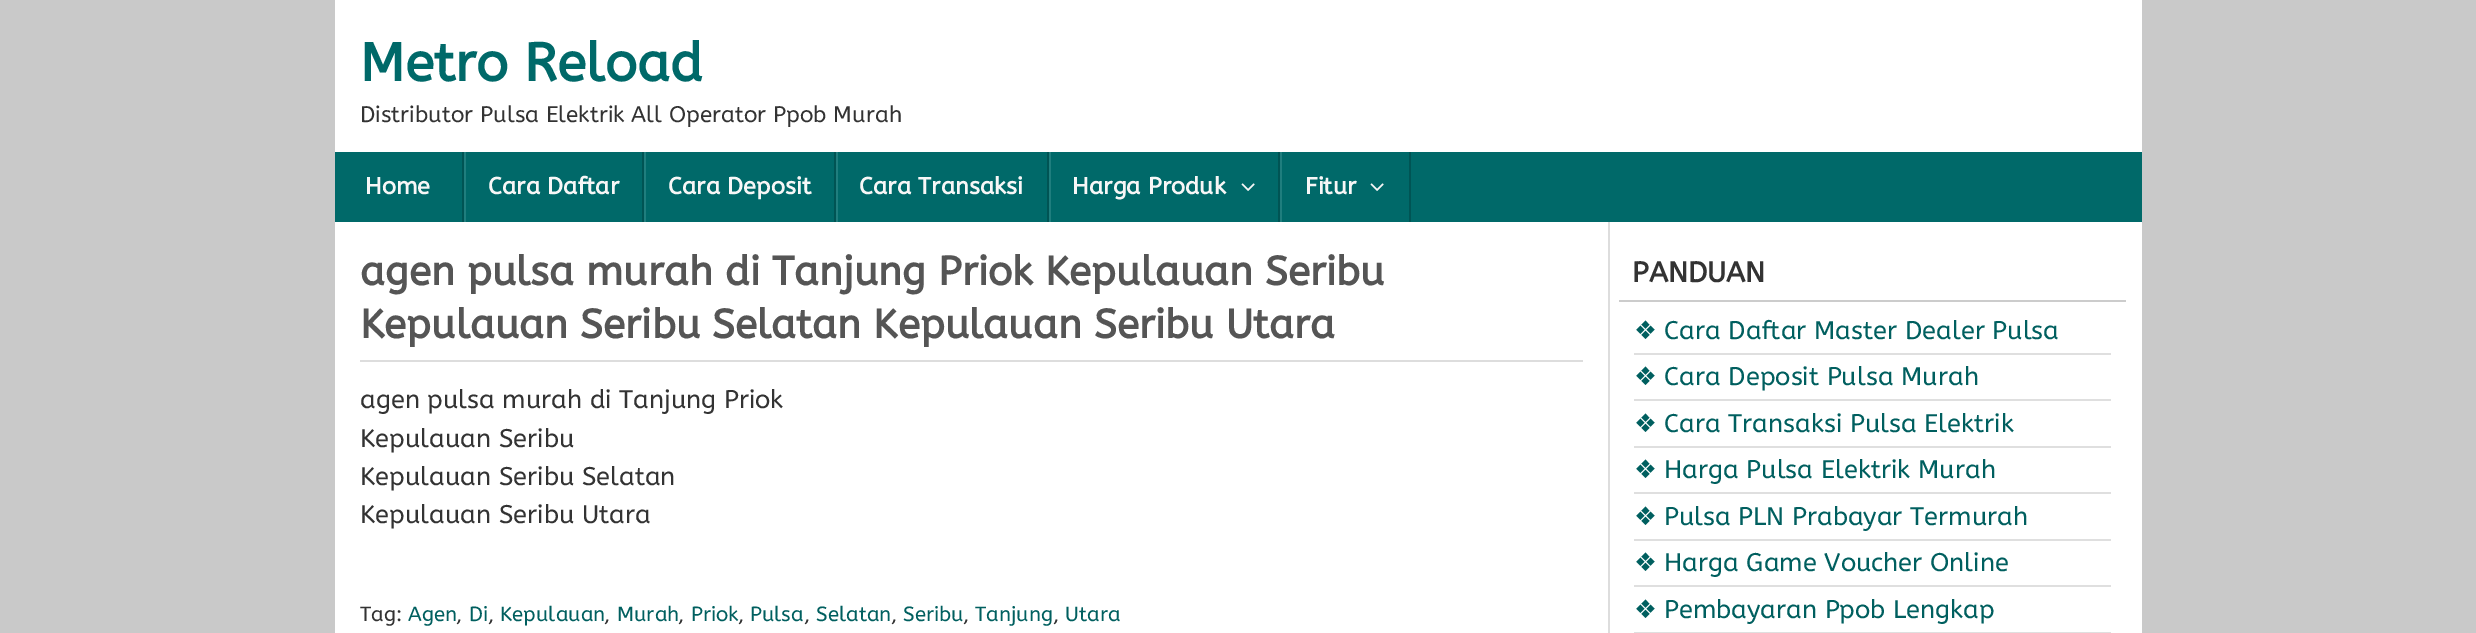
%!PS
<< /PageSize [2476 633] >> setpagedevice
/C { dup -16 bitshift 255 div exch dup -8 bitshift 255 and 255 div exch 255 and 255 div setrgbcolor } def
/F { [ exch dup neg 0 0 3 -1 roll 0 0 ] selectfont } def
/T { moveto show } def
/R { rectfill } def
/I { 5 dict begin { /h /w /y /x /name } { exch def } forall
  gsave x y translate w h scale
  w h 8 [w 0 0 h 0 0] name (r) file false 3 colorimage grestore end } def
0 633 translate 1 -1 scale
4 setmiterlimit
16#C9C9C9 C
0 0 2476 633 R
16#FFFFFF C
335 0 1807 633 R
/ABeeZee-Bold 53.5 F
16#006969 C
(Metro Reload) 360 81 T
/ABeeZee-Regular 22.5 F
16#333333 C
(Distributor Pulsa Elektrik All Operator Ppob Murah) 360 122 T
16#006969 C
335 152 1807 70 R
16#005454 C
462 152 2 70 R
/ABeeZee-Bold 23.5 F
16#F7F7F7 C
(Home) 365 194 T
16#005454 C
642 152 2 70 R
16#1F7E7E C
464 152 2 70 R
16#F7F7F7 C
(Cara Daftar) 488 194 T
16#005454 C
834 152 2 70 R
16#1F7E7E C
644 152 2 70 R
16#F7F7F7 C
(Cara Deposit) 668 194 T
16#005454 C
1047 152 2 70 R
16#1F7E7E C
836 152 2 70 R
16#F7F7F7 C
(Cara Transaksi) 859 194 T
16#005454 C
1278 152 2 70 R
16#1F7E7E C
1049 152 2 70 R
16#F7F7F7 C
(Harga Produk) 1072 194 T
(1.rgb) 1241 183 14 8 I
16#005454 C
1409 152 2 70 R
16#1F7E7E C
1280 152 2 70 R
16#F7F7F7 C
(Fitur) 1305 194 T
(2.rgb) 1370 183 14 8 I
16#DDDDDD C
1608 222 2 411 R
/ABeeZee-Bold 40.5 F
16#555555 C
(agen pulsa murah di Tanjung Priok Kepulauan Seribu) 360 285 T
(Kepulauan Seribu Selatan Kepulauan Seribu Utara) 360 338 T
16#DDDDDD C
360 360 1223 2 R
/ABeeZee-Regular 25.5 F
16#333333 C
(agen pulsa murah di Tanjung Priok) 360 408 T
(Kepulauan Seribu) 360 447 T
(Kepulauan Seribu Selatan) 360 485 T
(Kepulauan Seribu Utara) 360 523 T
/ABeeZee-Regular 20.5 F
(Tag:) 360 621 T
16#005F5F C
(Agen) 408 621 T
16#333333 C
(,) 456 621 T
16#005F5F C
(Di) 469 621 T
16#333333 C
(,) 488 621 T
16#005F5F C
(Kepulauan) 500 621 T
16#333333 C
(,) 604 621 T
16#005F5F C
(Murah) 617 621 T
16#333333 C
(,) 678 621 T
16#005F5F C
(Priok) 691 621 T
16#333333 C
(,) 738 621 T
16#005F5F C
(Pulsa) 750 621 T
16#333333 C
(,) 804 621 T
16#005F5F C
(Selatan) 816 621 T
16#333333 C
(,) 891 621 T
16#005F5F C
(Seribu) 903 621 T
16#333333 C
(,) 963 621 T
16#005F5F C
(Tanjung) 975 621 T
16#333333 C
(,) 1053 621 T
16#005F5F C
(Utara) 1065 621 T
16#CCCCCC C
1619 300 507 2 R
/ABeeZee-Bold 28.5 F
16#333333 C
(PANDUAN) 1632 282 T
16#DFDFDF C
1634 353 477 2 R
/DejaVuSans-Regular 25.5 F
16#005F5F C
(❖) 1634 339 T
/ABeeZee-Regular 25.5 F
(Cara Daftar Master Dealer Pulsa) 1664 339 T
16#DFDFDF C
1634 399 477 2 R
/DejaVuSans-Regular 25.5 F
16#005F5F C
(❖) 1634 385 T
/ABeeZee-Regular 25.5 F
(Cara Deposit Pulsa Murah) 1664 385 T
16#DFDFDF C
1634 446 477 2 R
/DejaVuSans-Regular 25.5 F
16#005F5F C
(❖) 1634 432 T
/ABeeZee-Regular 25.5 F
(Cara Transaksi Pulsa Elektrik) 1664 432 T
16#DFDFDF C
1634 492 477 2 R
/DejaVuSans-Regular 25.5 F
16#005F5F C
(❖) 1634 478 T
/ABeeZee-Regular 25.5 F
(Harga Pulsa Elektrik Murah) 1664 478 T
16#DFDFDF C
1634 539 477 2 R
/DejaVuSans-Regular 25.5 F
16#005F5F C
(❖) 1634 525 T
/ABeeZee-Regular 25.5 F
(Pulsa PLN Prabayar Termurah) 1664 525 T
16#DFDFDF C
1634 585 477 2 R
/DejaVuSans-Regular 25.5 F
16#005F5F C
(❖) 1634 571 T
/ABeeZee-Regular 25.5 F
(Harga Game Voucher Online) 1664 571 T
16#DFDFDF C
1634 632 477 1 R
/DejaVuSans-Regular 25.5 F
16#005F5F C
(❖) 1634 618 T
/ABeeZee-Regular 25.5 F
(Pembayaran Ppob Lengkap) 1664 618 T
showpage
